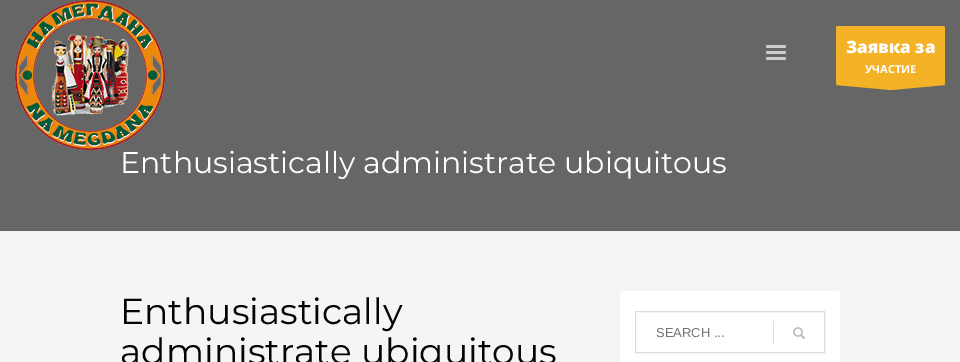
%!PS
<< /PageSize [960 362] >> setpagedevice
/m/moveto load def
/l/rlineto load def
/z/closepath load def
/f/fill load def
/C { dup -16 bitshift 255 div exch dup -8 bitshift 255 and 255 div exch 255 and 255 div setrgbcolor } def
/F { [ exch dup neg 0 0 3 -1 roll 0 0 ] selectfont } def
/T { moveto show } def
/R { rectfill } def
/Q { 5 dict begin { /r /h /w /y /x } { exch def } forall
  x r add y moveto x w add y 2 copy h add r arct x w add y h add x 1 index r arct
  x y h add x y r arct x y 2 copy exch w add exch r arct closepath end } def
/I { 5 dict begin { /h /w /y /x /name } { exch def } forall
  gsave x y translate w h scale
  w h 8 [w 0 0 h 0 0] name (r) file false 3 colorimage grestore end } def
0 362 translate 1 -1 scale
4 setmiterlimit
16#F5F5F5 C
0 0 960 362 R
16#666666 C
0 0 960 231 R
(1.rgb) 15 0 150 150 I
16#CECECE C
766 45 20 3 1.5 Q f
766 51 20 3 1.5 Q f
766 57 20 3 1.5 Q f
16#F4B327 C
836 26 109 59 2 Q f
/OpenSans-ExtraBold 17 F
16#FFFFFF C
(Заявка за) 846 53 T
/OpenSans-Bold 11 F
(УЧАСТИЕ) 865 73 T
16#F4B327 C
945 85 m -54 5 l -55 -5 l z eofill
/Montserrat-Regular 30 F
16#FFFFFF C
(Enthusiastically administrate ubiquitous) 120 173 T
/Montserrat-Regular 36 F
16#050505 C
(Enthusiastically) 120 324 T
(administrate ubiquitous) 120 364 T
16#FFFFFF C
620 291 220 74 3 Q f
16#DDDDDD C
635.5 311.5 189 41 rectstroke
/LiberationSans-Regular 13 F
16#757575 C
(SEARCH ...) 656 337 T
16#DDDDDD C
773 321 1 24 R
(2.rgb) 793 327 12 12 I
showpage
